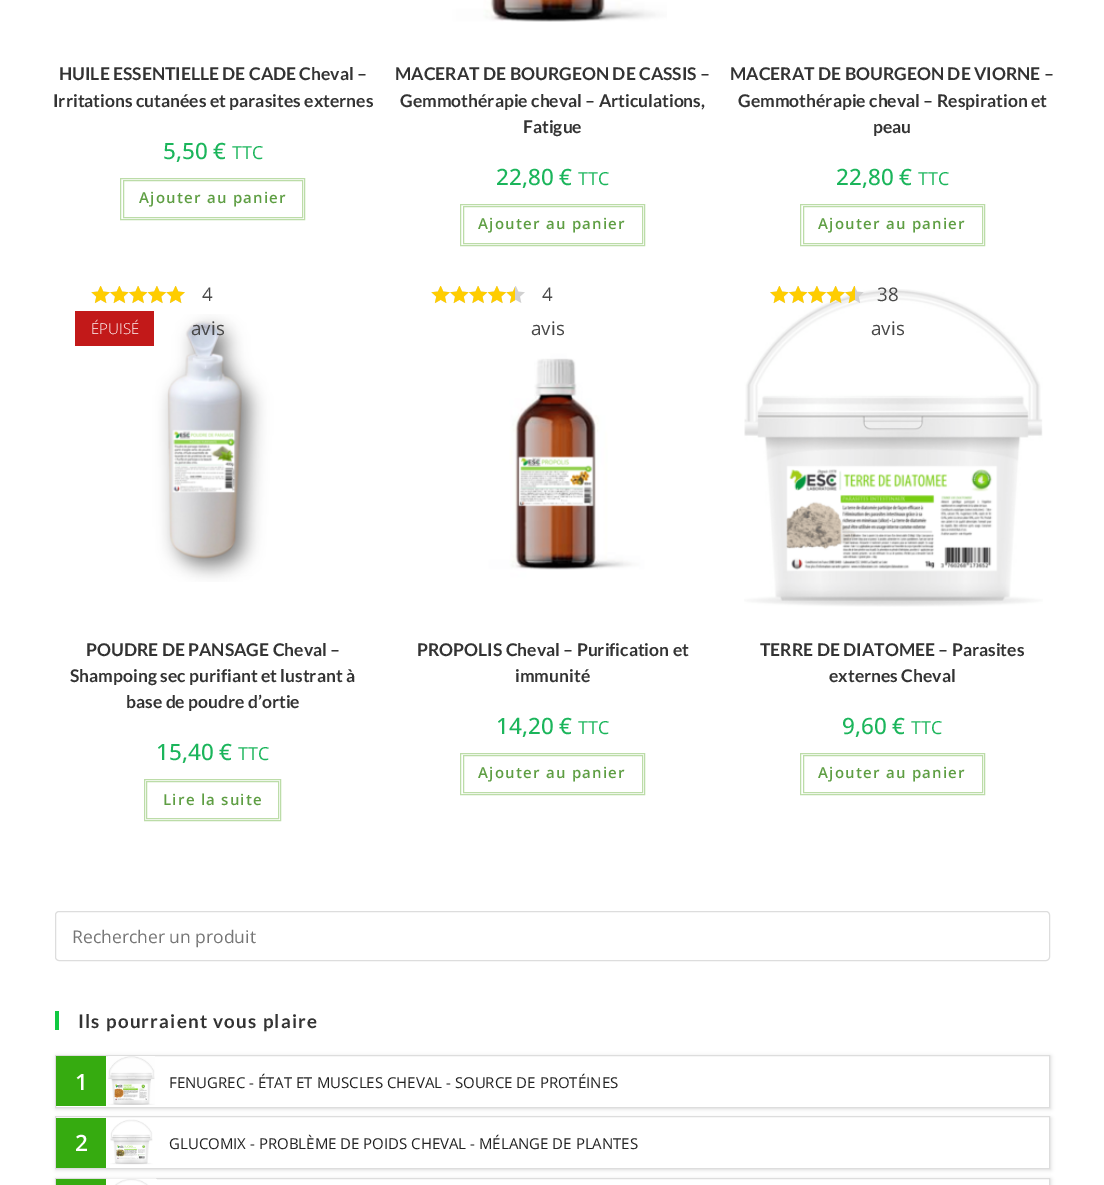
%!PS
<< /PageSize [1104 1185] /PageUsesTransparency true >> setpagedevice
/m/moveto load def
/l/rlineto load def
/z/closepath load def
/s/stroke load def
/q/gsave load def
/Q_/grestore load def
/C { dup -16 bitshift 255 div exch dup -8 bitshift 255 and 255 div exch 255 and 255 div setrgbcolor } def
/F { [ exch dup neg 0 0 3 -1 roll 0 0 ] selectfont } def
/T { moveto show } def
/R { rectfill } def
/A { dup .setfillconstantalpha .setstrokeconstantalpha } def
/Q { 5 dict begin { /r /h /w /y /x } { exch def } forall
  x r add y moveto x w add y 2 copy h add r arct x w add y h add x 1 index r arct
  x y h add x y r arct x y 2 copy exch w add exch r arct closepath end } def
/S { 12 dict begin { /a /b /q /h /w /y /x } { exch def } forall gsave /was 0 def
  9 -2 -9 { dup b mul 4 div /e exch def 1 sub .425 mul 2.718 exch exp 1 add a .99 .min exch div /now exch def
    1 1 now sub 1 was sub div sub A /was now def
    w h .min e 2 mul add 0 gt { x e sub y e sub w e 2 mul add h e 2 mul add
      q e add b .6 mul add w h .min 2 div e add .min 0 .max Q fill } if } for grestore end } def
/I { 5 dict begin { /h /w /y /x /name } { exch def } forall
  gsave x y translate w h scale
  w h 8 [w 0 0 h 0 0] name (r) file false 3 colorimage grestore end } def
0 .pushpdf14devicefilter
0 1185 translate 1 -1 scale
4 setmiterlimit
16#FFFFFF C
0 0 1104 1185 R
/Lato-Bold 17.5 F
16#333333 C
(HUILE ESSENTIELLE DE CADE Cheval –) 59 80 T
(Irritations cutanées et parasites externes) 53 107 T
/OpenSans-Medium 22.5 F
16#1BB55B C
(5,50 €) 163 159 T
/OpenSans-Regular 18 F
(TTC) 232 159 T
16#BCDCA8 C
120.5 178.5 184 41 rectstroke
123.5 180.5 179 37 rectstroke
/OpenSans-SemiBold 15 F
16#5E9E43 C
139 203 m 1.25 0 (Ajouter au panier) ashow
(1.rgb) 424 0 243 22 I
/Lato-Bold 17.5 F
16#333333 C
(MACERAT DE BOURGEON DE CASSIS –) 395 80 T
(Gemmothérapie cheval – Articulations,) 400 107 T
(Fatigue) 523 133 T
/OpenSans-Medium 22.5 F
16#1BB55B C
(22,80 €) 496 185 T
/OpenSans-Regular 18 F
(TTC) 578 185 T
16#BCDCA8 C
460.5 204.5 184 41 rectstroke
463.5 206.5 179 37 rectstroke
/OpenSans-SemiBold 15 F
16#5E9E43 C
478 229 m 1.25 0 (Ajouter au panier) ashow
/Lato-Bold 17.5 F
16#333333 C
(MACERAT DE BOURGEON DE VIORNE –) 730 80 T
(Gemmothérapie cheval – Respiration et) 738 107 T
(peau) 873 133 T
/OpenSans-Medium 22.5 F
16#1BB55B C
(22,80 €) 836 185 T
/OpenSans-Regular 18 F
(TTC) 918 185 T
16#BCDCA8 C
800.5 204.5 184 41 rectstroke
803.5 206.5 179 37 rectstroke
/OpenSans-SemiBold 15 F
16#5E9E43 C
818 229 m 1.25 0 (Ajouter au panier) ashow
(2.rgb) 91 286 19 17 I
(3.rgb) 110 286 19 17 I
(4.rgb) 129 286 19 17 I
(5.rgb) 148 286 18 17 I
(2.rgb) 166 286 19 17 I
(6.rgb) 91 286 19 18 I
(7.rgb) 110 286 19 18 I
(8.rgb) 129 286 19 18 I
(9.rgb) 148 286 18 18 I
(6.rgb) 166 286 19 18 I
/OpenSans-Regular 18.75 F
16#474747 C
(4) 202 301 T
(10.rgb) 91 314 239 268 I
(avis) 191 335 T
16#C21919 C
75 311 79 35 R
/OpenSans-Light 15 F
16#FFFFFF C
(ÉPUISÉ) 91 334 T
/Lato-Bold 17.5 F
16#333333 C
(POUDRE DE PANSAGE Cheval –) 86 656 T
(Shampoing sec purifiant et lustrant à) 70 682 T
(base de poudre d’ortie) 126 708 T
/OpenSans-Medium 22.5 F
16#1BB55B C
(15,40 €) 156 760 T
/OpenSans-Regular 18 F
(TTC) 238 760 T
16#BCDCA8 C
144.5 779.5 136 41 rectstroke
146.5 781.5 132 37 rectstroke
/OpenSans-SemiBold 15 F
16#5E9E43 C
163 805 m 1.25 0 (Lire la suite) ashow
(2.rgb) 431 286 19 17 I
(3.rgb) 450 286 19 17 I
(4.rgb) 469 286 19 17 I
(5.rgb) 488 286 18 17 I
(2.rgb) 506 286 19 17 I
(12.rgb) 416 303 269 294 I
(6.rgb) 431 286 19 18 I
(7.rgb) 450 286 19 18 I
(8.rgb) 469 286 19 18 I
(9.rgb) 488 286 18 18 I
(11.rgb) 506 287 9 17 I
/OpenSans-Regular 18.75 F
16#474747 C
(4) 542 301 T
(avis) 531 335 T
/Lato-Bold 17.5 F
16#333333 C
(PROPOLIS Cheval – Purification et) 417 656 T
(immunité) 515 682 T
/OpenSans-Medium 22.5 F
16#1BB55B C
(14,20 €) 496 734 T
/OpenSans-Regular 18 F
(TTC) 578 734 T
16#BCDCA8 C
460.5 753.5 184 41 rectstroke
463.5 755.5 179 37 rectstroke
/OpenSans-SemiBold 15 F
16#5E9E43 C
478 778 m 1.25 0 (Ajouter au panier) ashow
(18.rgb) 744 289 299 318 I
(3.rgb) 770 286 19 17 I
(4.rgb) 789 286 19 17 I
(5.rgb) 808 286 18 17 I
(13.rgb) 826 286 19 17 I
(14.rgb) 845 286 19 17 I
(7.rgb) 770 286 19 18 I
(8.rgb) 789 286 19 18 I
(15.rgb) 808 286 18 18 I
(16.rgb) 826 286 19 18 I
(17.rgb) 845 286 10 18 I
/OpenSans-Regular 18.75 F
16#474747 C
(38) 877 301 T
(avis) 871 335 T
/Lato-Bold 17.5 F
16#333333 C
(TERRE DE DIATOMEE – Parasites) 760 656 T
(externes Cheval) 829 682 T
/OpenSans-Medium 22.5 F
16#1BB55B C
(9,60 €) 842 734 T
/OpenSans-Regular 18 F
(TTC) 911 734 T
16#BCDCA8 C
800.5 753.5 184 41 rectstroke
803.5 755.5 179 37 rectstroke
/OpenSans-SemiBold 15 F
16#5E9E43 C
818 778 m 1.25 0 (Ajouter au panier) ashow
16#DDDDDD C
55.5 911.5 994 49 3.5 Q s
/OpenSans-Regular 17.5 F
16#757575 C
(Rechercher un produit) 72 943 T
16#10C941 C
55 1011 4 19 R
/Lato-Bold 18.75 F
16#333333 C
78 1028 m 1.25 0 (Ils pourraient vous plaire) ashow
q
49 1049 m 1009 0 l 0 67 l -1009 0 l z 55 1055 m 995 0 l 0 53 l -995 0 l z eoclip newpath
16#DDDDDD C
56 1056 995 53 0 2 1 S
Q_
16#DDDDDD C
55.5 1055.5 994 52 rectstroke
16#36AB10 C
56 1056 50 50 R
/OpenSans-SemiBold 22.5 F
16#FFFFFF C
(1) 75 1090 T
(19.rgb) 108 1056 47 49 I
/OpenSans-Regular 15 F
16#222222 C
(FENUGREC - ÉTAT ET MUSCLES CHEVAL - SOURCE DE PROTÉINES) 169 1088 T
q
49 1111 m 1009 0 l 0 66 l -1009 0 l z 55 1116 m 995 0 l 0 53 l -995 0 l z eoclip newpath
16#DDDDDD C
56 1118 995 52 0 2 1 S
Q_
16#DDDDDD C
55.5 1116.5 994 52 rectstroke
16#36AB10 C
56 1118 50 50 R
/OpenSans-SemiBold 22.5 F
16#FFFFFF C
(2) 75 1151 T
(20.rgb) 110 1119 43 46 I
/OpenSans-Regular 15 F
16#222222 C
(GLUCOMIX - PROBLÈME DE POIDS CHEVAL - MÉLANGE DE PLANTES) 169 1149 T
q
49 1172 m 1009 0 l 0 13 l -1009 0 l z 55 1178 m 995 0 l 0 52 l -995 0 l z eoclip newpath
16#DDDDDD C
56 1179 995 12 0 2 1 S
Q_
16#DDDDDD C
55.5 1178.5 994 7 rectstroke
16#36AB10 C
56 1179 50 6 R
(21.rgb) 106 1178 51 7 I
.poppdf14devicefilter showpage
